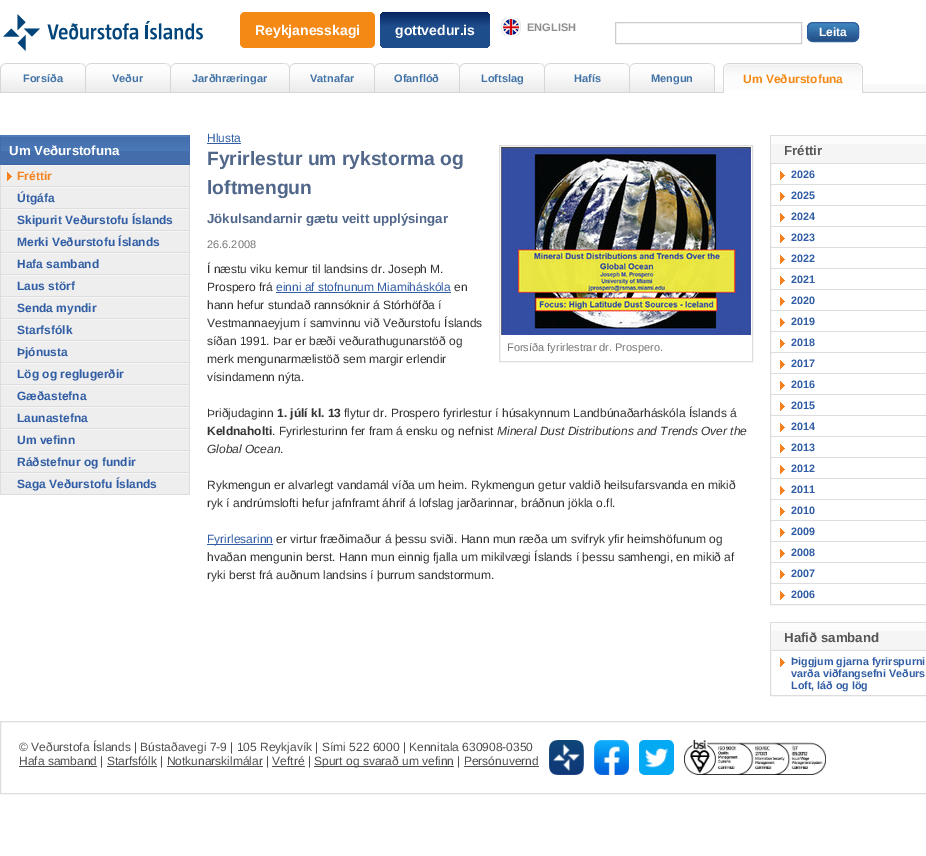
%!PS
<< /PageSize [926 856] >> setpagedevice
/f/fill load def
/s/stroke load def
/q/gsave load def
/Q_/grestore load def
/C { dup -16 bitshift 255 div exch dup -8 bitshift 255 and 255 div exch 255 and 255 div setrgbcolor } def
/F { [ exch dup neg 0 0 3 -1 roll 0 0 ] selectfont } def
/T { moveto show } def
/R { rectfill } def
/Q { 5 dict begin { /r /h /w /y /x } { exch def } forall
  x r add y moveto x w add y 2 copy h add r arct x w add y h add x 1 index r arct
  x y h add x y r arct x y 2 copy exch w add exch r arct closepath end } def
/I { 5 dict begin { /h /w /y /x /name } { exch def } forall
  gsave x y translate w h scale
  w h 8 [w 0 0 h 0 0] name (r) file false 3 colorimage grestore end } def
0 856 translate 1 -1 scale
4 setmiterlimit
16#FFFFFF C
0 0 926 856 R
(1.rgb) 0 84 926 9 I
(2.rgb) 3 14 200 37 I
16#F48916 C
240 12 135 36 5 Q f
/LiberationSans-Bold 14 F
16#FFFFFF C
(Reykjanesskagi) 255 35 T
q 380 12 110 36 5 Q clip newpath
<< /ShadingType 2 /ColorSpace /DeviceRGB /Coords [435 48 435 12] /Extend [true true] /Function << /FunctionType 3 /Domain [0 1] /Functions [<< /FunctionType 2 /Domain [0 1] /C0 [.118 .302 .545] /C1 [.118 .302 .545] /N 1 >> << /FunctionType 2 /Domain [0 1] /C0 [.118 .302 .545] /C1 [.027 .141 .376] /N 1 >>] /Bounds [.6] /Encode [0 1 0 1] >> >> shfill Q_
(gottvedur.is) 395 35 T
(3.rgb) 501 18 20 18 I
/LiberationSans-Bold 11 F
16#8E8E8E C
(ENGLISH) 527 31 T
16#CCCCCC C
615.5 22.5 186 21 rectstroke
(4.rgb) 807 23 52 19 I
16#2E5F9C C
807.5 22.5 51 19 5.5 Q s
/LiberationSans-Bold 12 F
16#FFFFFF C
(Leita) 819 36 T
16#DDDDDD C
.5 721.5 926 72 rectstroke
/LiberationSans-Regular 12 F
16#4E4E4E C
(© Veðurstofa Íslands | Bústaðavegi 7-9 | 105 Reykjavík | Sími 522 6000 | Kennitala 630908-0350) 19 751 T
19 766 78 1 R
(Hafa samband | Starfsfólk | Notkunarskilmálar | Veftré |) 19 765 T
314 766 140 1 R
(Spurt og svarað um vefinn | Persónuvernd) 314 765 T
107 766 50 1 R
167 766 96 1 R
272 766 33 1 R
464 766 75 1 R
(5.rgb) 549 740 35 35 I
(6.rgb) 594 740 35 35 I
(7.rgb) 639 740 35 35 I
(8.rgb) 684 740 142 35 I
(9.rgb) 0 63 85 29 I
(10.rgb) 80 63 5 6 I
/LiberationSans-Bold 11 F
16#4374A8 C
(Forsíða) 23 82 T
(9.rgb) 85 63 85 29 I
(10.rgb) 165 63 5 6 I
(Veður) 112 82 T
(11.rgb) 170 63 119 29 I
(10.rgb) 284 63 5 6 I
(Jarðhræringar) 192 82 T
(9.rgb) 289 63 85 29 I
(10.rgb) 369 63 5 6 I
(Vatnafar) 310 82 T
(9.rgb) 374 63 85 29 I
(10.rgb) 454 63 5 6 I
(Ofanflóð) 394 82 T
(9.rgb) 459 63 85 29 I
(10.rgb) 539 63 5 6 I
(Loftslag) 481 82 T
(9.rgb) 544 63 85 29 I
(10.rgb) 624 63 5 6 I
(Hafís) 574 82 T
(9.rgb) 629 63 85 29 I
(12.rgb) 709 63 6 29 I
(Mengun) 651 82 T
(13.rgb) 723 63 139 30 I
(14.rgb) 858 63 5 30 I
/LiberationSans-Bold 12 F
16#F38915 C
(Um Veðurstofuna) 743 83 T
16#EEEEEE C
1 166 188 328 R
16#DDDDDD C
189 165 1 330 R
0 165 1 330 R
16#446DAC C
1 151 188 13 R
(15.rgb) 1 135 188 16 I
189 135 1 30 R
16#3D62A4 C
0 164 190 1 R
16#446DAC C
0 135 1 30 R
/LiberationSans-Bold 13.25 F
16#FFFFFF C
(Um Veðurstofuna) 9 155 T
(16.rgb) 7 172 5 9 I
16#F6F6F6 C
1 165 188 1 R
16#DDDDDD C
1 186 188 1 R
/LiberationSans-Bold 12 F
16#F5821F C
(Fréttir) 17 180 T
16#F6F6F6 C
1 187 188 1 R
16#DDDDDD C
1 208 188 1 R
16#305DA3 C
(Útgáfa) 17 202 T
16#F6F6F6 C
1 209 188 1 R
16#DDDDDD C
1 230 188 1 R
16#305DA3 C
(Skipurit Veðurstofu Íslands) 17 224 T
16#F6F6F6 C
1 231 188 1 R
16#DDDDDD C
1 252 188 1 R
16#305DA3 C
(Merki Veðurstofu Íslands) 17 246 T
16#F6F6F6 C
1 253 188 1 R
16#DDDDDD C
1 274 188 1 R
16#305DA3 C
(Hafa samband) 17 268 T
16#F6F6F6 C
1 275 188 1 R
16#DDDDDD C
1 296 188 1 R
16#305DA3 C
(Laus störf) 17 290 T
16#F6F6F6 C
1 297 188 1 R
16#DDDDDD C
1 318 188 1 R
16#305DA3 C
(Senda myndir) 17 312 T
16#F6F6F6 C
1 319 188 1 R
16#DDDDDD C
1 340 188 1 R
16#305DA3 C
(Starfsfólk) 17 334 T
16#F6F6F6 C
1 341 188 1 R
16#DDDDDD C
1 362 188 1 R
16#305DA3 C
(Þjónusta) 17 356 T
16#F6F6F6 C
1 363 188 1 R
16#DDDDDD C
1 384 188 1 R
16#305DA3 C
(Lög og reglugerðir) 17 378 T
16#F6F6F6 C
1 385 188 1 R
16#DDDDDD C
1 406 188 1 R
16#305DA3 C
(Gæðastefna) 17 400 T
16#F6F6F6 C
1 407 188 1 R
16#DDDDDD C
1 428 188 1 R
16#305DA3 C
(Launastefna) 17 422 T
16#F6F6F6 C
1 429 188 1 R
16#DDDDDD C
1 450 188 1 R
16#305DA3 C
(Um vefinn) 17 444 T
16#F6F6F6 C
1 451 188 1 R
16#DDDDDD C
1 472 188 1 R
16#305DA3 C
(Ráðstefnur og fundir) 17 466 T
16#F6F6F6 C
1 473 188 1 R
16#DDDDDD C
1 494 188 1 R
16#305DA3 C
(Saga Veðurstofu Íslands) 17 488 T
/LiberationSans-Regular 12 F
(Hlusta) 207 142 T
207 143 34 1 R
/LiberationSans-Bold 19.25 F
16#51678A C
(Fyrirlestur um rykstorma og) 207 165 T
(loftmengun) 207 194 T
/LiberationSans-Bold 13.25 F
(Jökulsandarnir gætu veitt upplýsingar) 207 223 T
/LiberationSans-Regular 11 F
16#777777 C
(26.6.2008) 207 248 T
/LiberationSans-Regular 12 F
16#333333 C
(Í næstu viku kemur til landsins dr. Joseph M.) 207 273 T
(Prospero frá) 207 291 T
16#305DA3 C
(einni af stofnunum Miamiháskóla) 276 291 T
276 292 175 1 R
16#333333 C
(en) 454 291 T
(hann hefur stundað rannsóknir á Stórhöfða í) 207 309 T
(Vestmannaeyjum í samvinnu við Veðurstofu Íslands) 207 327 T
(síðan 1991. Þar er bæði veðurathugunarstöð og) 207 345 T
(merk mengunarmælistöð sem margir erlendir) 207 363 T
(vísindamenn nýta.) 207 381 T
(Þriðjudaginn) 207 417 T
/LiberationSans-Bold 12 F
(1. júlí kl. 13) 277 417 T
/LiberationSans-Regular 12 F
(flytur dr. Prospero fyrirlestur í húsakynnum Landbúnaðarháskóla Íslands á) 344 417 T
/LiberationSans-Bold 12 F
(Keldnaholti) 207 435 T
/LiberationSans-Regular 12 F
(. Fyrirlesturinn fer fram á ensku og nefnist) 272 435 T
/LiberationSans-Italic 12 F
(Mineral Dust Distributions and Trends Over the) 497 435 T
(Global Ocean) 207 453 T
/LiberationSans-Regular 12 F
(.) 280 453 T
(Rykmengun er alvarlegt vandamál víða um heim. Rykmengun getur valdið heilsufarsvanda en mikið) 207 489 T
(ryk í andrúmslofti hefur jafnframt áhrif á lofslag jarðarinnar, bráðnun jökla o.fl.) 207 507 T
16#305DA3 C
207 544 66 1 R
(Fyrirlesarinn) 207 543 T
16#333333 C
(er virtur fræðimaður á þessu sviði. Hann mun ræða um svifryk yfir heimshöfunum og) 276 543 T
(hvaðan mengunin berst. Hann mun einnig fjalla um mikilvægi Íslands í þessu samhengi, en mikið af) 207 561 T
(ryki berst frá auðnum landsins í þurrum sandstormum.) 207 579 T
16#DDDDDD C
499.5 145.5 253 216 rectstroke
(17.rgb) 501 147 250 188 I
/LiberationSans-Regular 11 F
16#777777 C
(Forsíða fyrirlestrar dr. Prospero.) 507 351 T
16#DDDDDD C
770.5 135.5 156 469 rectstroke
16#F5F5F5 C
771 144 155 19 R
16#FCFCFC C
771 136 155 8 R
/LiberationSans-Bold 13.25 F
16#555555 C
(Fréttir) 784 155 T
(18.rgb) 780 171 5 9 I
16#DDDDDD C
771 163 155 1 R
/LiberationSans-Bold 10.75 F
16#305DA3 C
(2026) 791 178 T
(18.rgb) 780 192 5 9 I
16#DDDDDD C
771 184 155 1 R
16#305DA3 C
(2025) 791 199 T
(18.rgb) 780 213 5 9 I
16#DDDDDD C
771 205 155 1 R
16#305DA3 C
(2024) 791 220 T
(18.rgb) 780 234 5 9 I
16#DDDDDD C
771 226 155 1 R
16#305DA3 C
(2023) 791 241 T
(18.rgb) 780 255 5 9 I
16#DDDDDD C
771 247 155 1 R
16#305DA3 C
(2022) 791 262 T
(18.rgb) 780 276 5 9 I
16#DDDDDD C
771 268 155 1 R
16#305DA3 C
(2021) 791 283 T
(18.rgb) 780 297 5 9 I
16#DDDDDD C
771 289 155 1 R
16#305DA3 C
(2020) 791 304 T
(18.rgb) 780 318 5 9 I
16#DDDDDD C
771 310 155 1 R
16#305DA3 C
(2019) 791 325 T
(18.rgb) 780 339 5 9 I
16#DDDDDD C
771 331 155 1 R
16#305DA3 C
(2018) 791 346 T
(18.rgb) 780 360 5 9 I
16#DDDDDD C
771 352 155 1 R
16#305DA3 C
(2017) 791 367 T
(18.rgb) 780 381 5 9 I
16#DDDDDD C
771 373 155 1 R
16#305DA3 C
(2016) 791 388 T
(18.rgb) 780 402 5 9 I
16#DDDDDD C
771 394 155 1 R
16#305DA3 C
(2015) 791 409 T
(18.rgb) 780 423 5 9 I
16#DDDDDD C
771 415 155 1 R
16#305DA3 C
(2014) 791 430 T
(18.rgb) 780 444 5 9 I
16#DDDDDD C
771 436 155 1 R
16#305DA3 C
(2013) 791 451 T
(18.rgb) 780 465 5 9 I
16#DDDDDD C
771 457 155 1 R
16#305DA3 C
(2012) 791 472 T
(18.rgb) 780 486 5 9 I
16#DDDDDD C
771 478 155 1 R
16#305DA3 C
(2011) 791 493 T
(18.rgb) 780 507 5 9 I
16#DDDDDD C
771 499 155 1 R
16#305DA3 C
(2010) 791 514 T
(18.rgb) 780 528 5 9 I
16#DDDDDD C
771 520 155 1 R
16#305DA3 C
(2009) 791 535 T
(18.rgb) 780 549 5 9 I
16#DDDDDD C
771 541 155 1 R
16#305DA3 C
(2008) 791 556 T
(18.rgb) 780 570 5 9 I
16#DDDDDD C
771 562 155 1 R
16#305DA3 C
(2007) 791 577 T
(18.rgb) 780 591 5 9 I
16#DDDDDD C
771 583 155 1 R
16#305DA3 C
(2006) 791 598 T
16#DDDDDD C
770.5 622.5 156 73 rectstroke
16#F5F5F5 C
771 631 155 19 R
16#FCFCFC C
771 623 155 8 R
/LiberationSans-Bold 13.25 F
16#555555 C
(Hafið samband) 784 642 T
(18.rgb) 780 658 5 9 I
16#DDDDDD C
771 650 155 1 R
/LiberationSans-Bold 10.75 F
16#305DA3 C
(Þiggjum gjarna fyrirspurni) 791 665 T
(varða viðfangsefni Veðurs) 791 677 T
(Loft, láð og lög) 791 689 T
showpage
